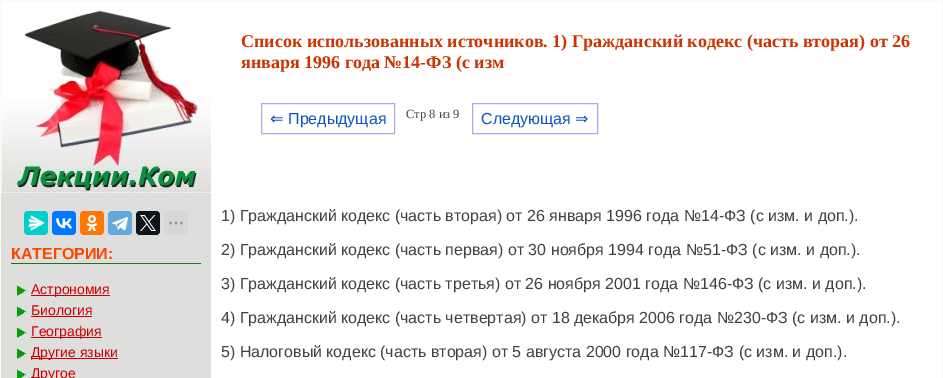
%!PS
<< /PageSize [943 378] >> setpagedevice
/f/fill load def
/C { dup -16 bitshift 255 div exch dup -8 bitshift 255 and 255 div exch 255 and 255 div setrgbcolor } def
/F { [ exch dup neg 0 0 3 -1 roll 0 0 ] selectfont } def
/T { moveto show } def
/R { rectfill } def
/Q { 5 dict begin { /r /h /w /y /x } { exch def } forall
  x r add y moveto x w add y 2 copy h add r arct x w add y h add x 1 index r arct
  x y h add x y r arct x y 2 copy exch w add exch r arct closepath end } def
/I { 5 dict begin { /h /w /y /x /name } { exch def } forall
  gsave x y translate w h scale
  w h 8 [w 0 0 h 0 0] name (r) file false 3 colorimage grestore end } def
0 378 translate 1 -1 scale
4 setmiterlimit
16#F0FFF0 C
0 0 943 378 R
16#DEDEDC C
1 193 210 185 R
(1.rgb) 1 1 210 192 I
16#03CECE C
24 211 24 24 4 Q f
(2.rgb) 28 215 16 16 I
16#0077FF C
52 211 24 24 4 Q f
(3.rgb) 56 218 16 11 I
16#FF7700 C
80 211 24 24 4 Q f
(4.rgb) 86 215 12 16 I
16#64A9DC C
108 211 24 24 4 Q f
(5.rgb) 112 217 16 14 I
16#0F1419 C
136 211 24 24 4 Q f
(6.rgb) 140 215 16 16 I
16#D7D7D5 C
164 211 24 24 4 Q f
(7.rgb) 169 221 14 4 I
16#157721 C
11 263 190 1 R
/LiberationSans-Bold 16 F
16#FF4400 C
(КАТЕГОРИИ:) 11 259 T
(8.rgb) 16 285 11 11 I
16#CC0000 C
31 295 79 1 R
/LiberationSans-Regular 14 F
(Астрономия) 31 294 T
(8.rgb) 16 306 11 11 I
(Биология) 31 315 T
31 316 61 1 R
(8.rgb) 16 327 11 11 I
31 337 71 1 R
(География) 31 336 T
(8.rgb) 16 348 11 11 I
31 358 87 1 R
(Другие языки) 31 357 T
(9.rgb) 16 369 11 9 I
(Другое) 31 378 T
16#FFFFFF C
211 1 731 377 R
/LiberationSerif-Bold 18 F
16#CC3300 C
(Список использованных источников. 1\) Гражданский кодекс \(часть вторая\) от 26) 241 47 T
(января 1996 года №14-ФЗ \(с изм) 241 68 T
16#AAAAEE C
261.5 103.5 133 30 rectstroke
/DejaVuSans-Regular 16 F
16#1155BB C
(⇐) 270 124 T
/LiberationSans-Regular 16 F
(Предыдущая) 288 124 T
/LiberationSerif-Regular 12.5 F
16#424242 C
(Стр 8 из 9) 406 118 T
16#AAAAEE C
472.5 103.5 125 30 rectstroke
/LiberationSans-Regular 16 F
16#1155BB C
(Следующая) 481 124 T
/DejaVuSans-Regular 16 F
(⇒) 575 124 T
/LiberationSans-Regular 16 F
16#424242 C
(1\) Гражданский кодекс \(часть вторая\) от 26 января 1996 года №14-ФЗ \(с изм. и доп.\).) 221 221 T
(2\) Гражданский кодекс \(часть первая\) от 30 ноября 1994 года №51-ФЗ \(с изм. и доп.\).) 221 255 T
(3\) Гражданский кодекс \(часть третья\) от 26 ноября 2001 года №146-ФЗ \(с изм. и доп.\).) 221 289 T
(4\) Гражданский кодекс \(часть четвертая\) от 18 декабря 2006 года №230-ФЗ \(с изм. и доп.\).) 221 323 T
(5\) Налоговый кодекс \(часть вторая\) от 5 августа 2000 года №117-ФЗ \(с изм. и доп.\).) 221 357 T
showpage
